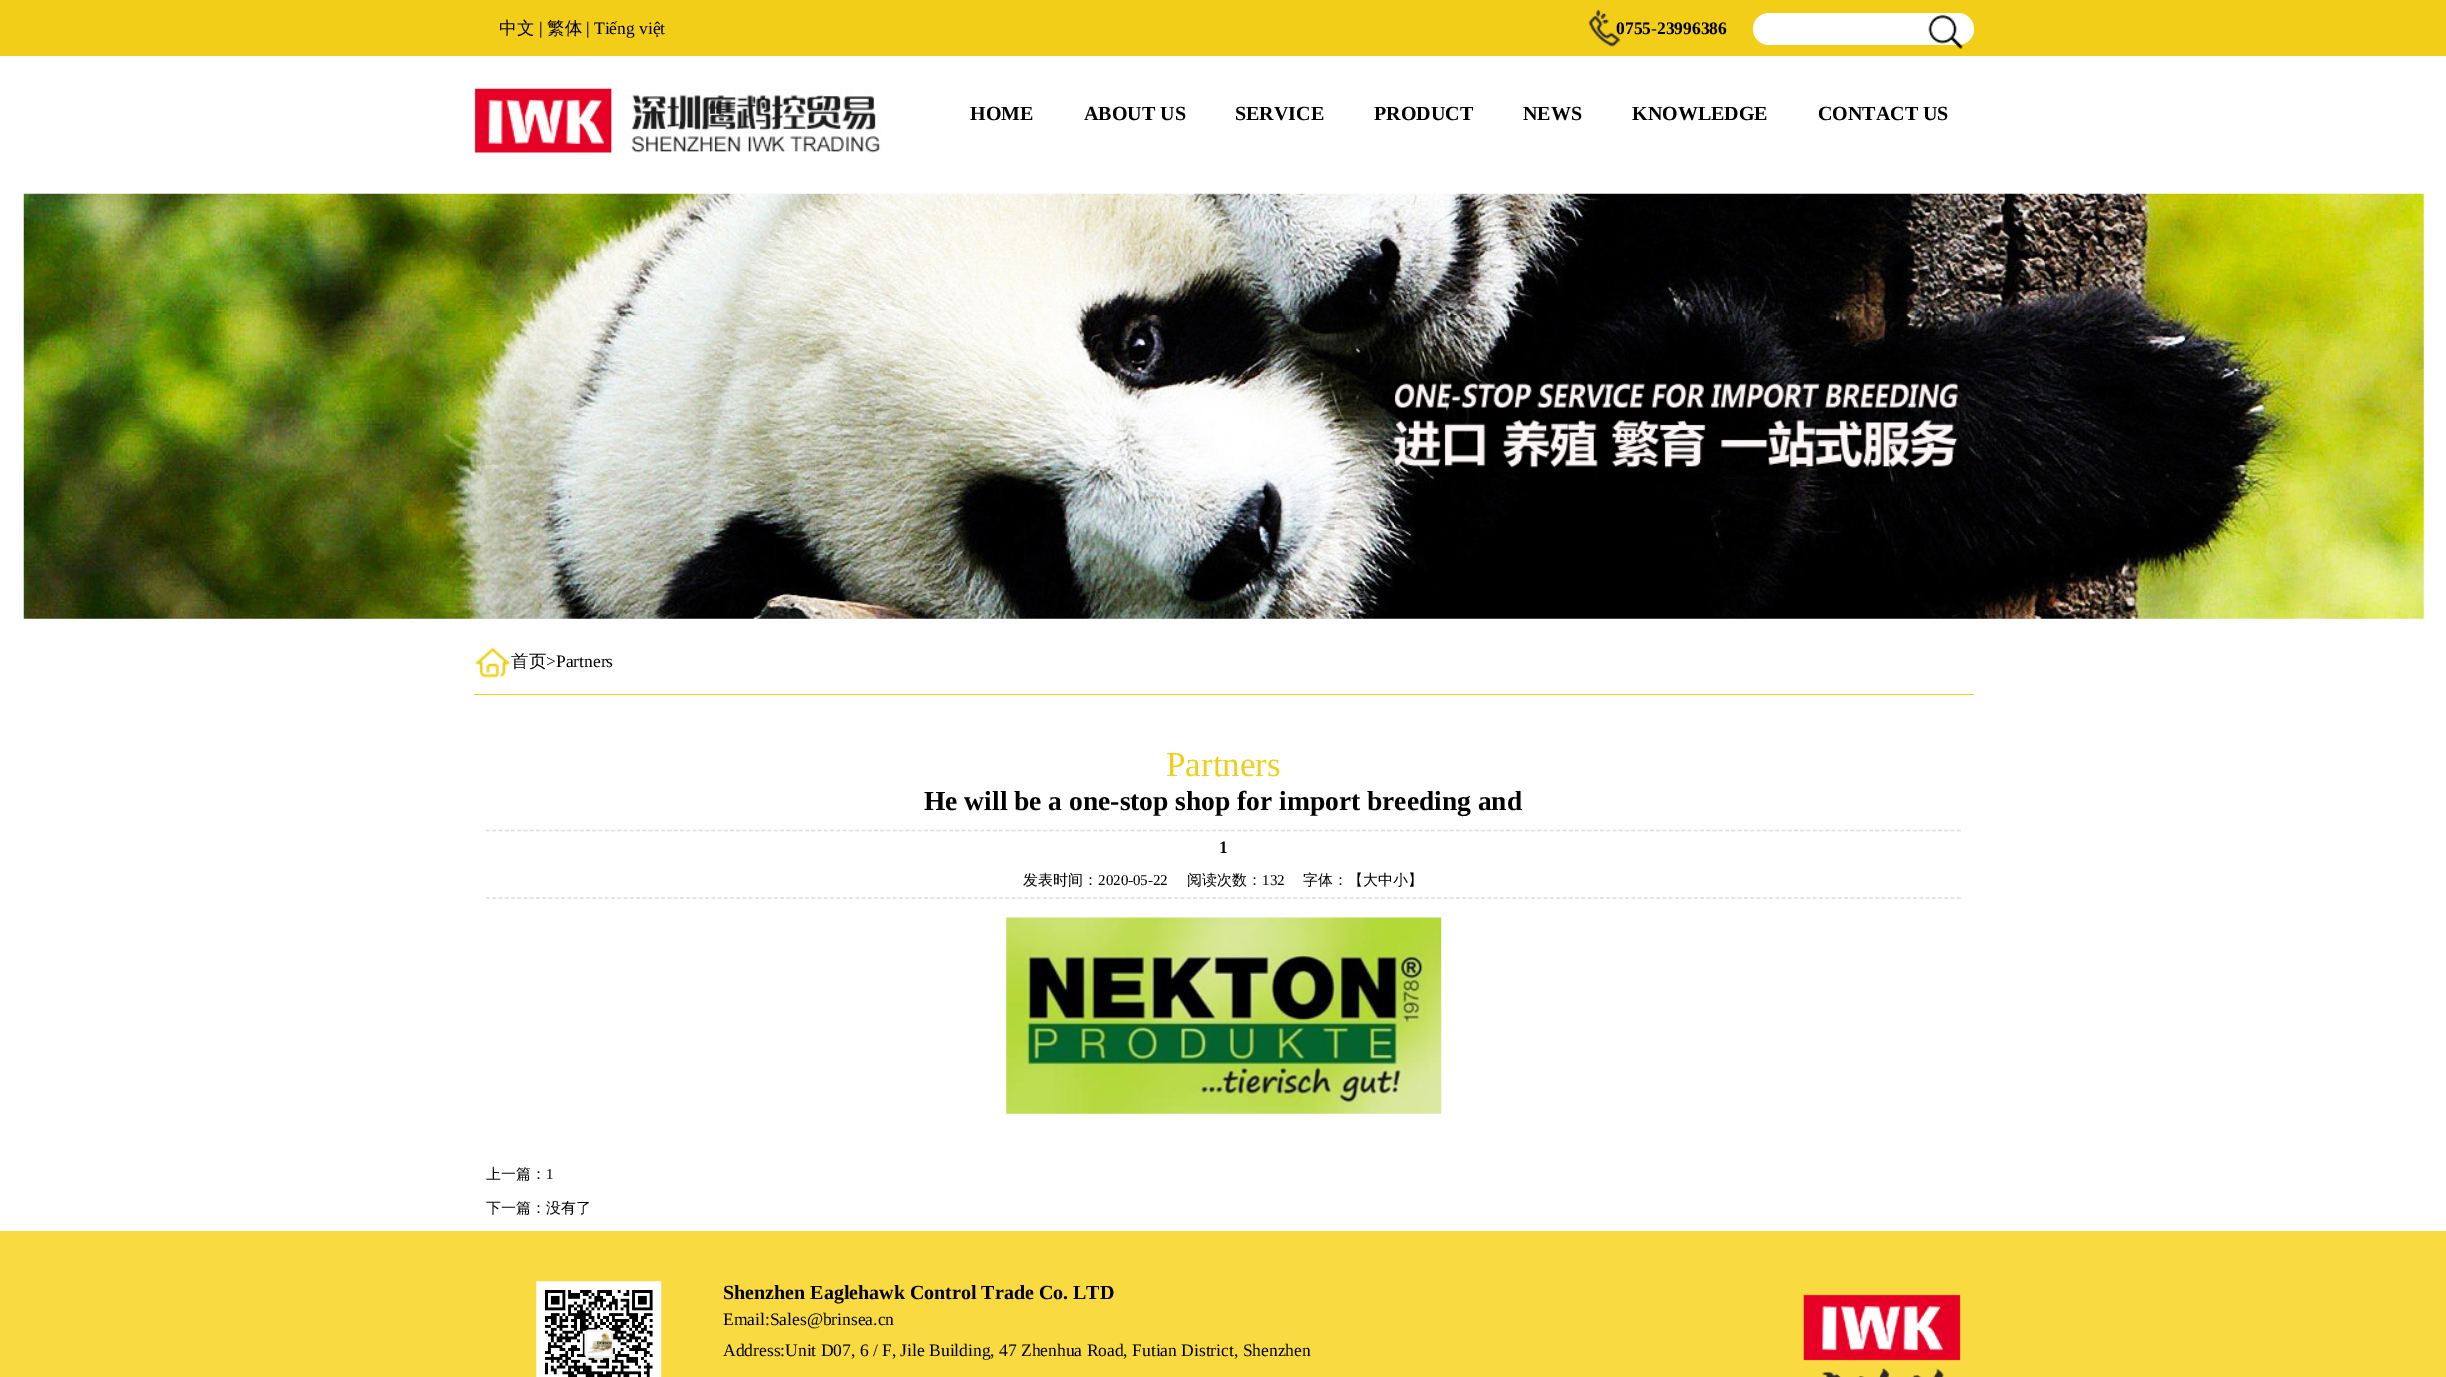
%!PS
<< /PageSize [2446 1377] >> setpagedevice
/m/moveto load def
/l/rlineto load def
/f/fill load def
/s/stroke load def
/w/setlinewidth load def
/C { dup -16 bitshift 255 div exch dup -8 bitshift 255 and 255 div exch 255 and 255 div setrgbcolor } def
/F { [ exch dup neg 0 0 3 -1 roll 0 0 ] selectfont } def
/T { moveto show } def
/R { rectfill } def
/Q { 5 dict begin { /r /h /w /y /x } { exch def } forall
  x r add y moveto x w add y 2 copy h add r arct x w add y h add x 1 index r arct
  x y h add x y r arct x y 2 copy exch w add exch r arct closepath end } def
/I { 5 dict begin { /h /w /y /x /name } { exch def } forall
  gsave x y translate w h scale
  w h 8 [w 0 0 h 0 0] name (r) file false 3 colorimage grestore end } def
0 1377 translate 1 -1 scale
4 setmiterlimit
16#FFFFFF C
0 0 2446 1377 R
16#F2CE18 C
0 0 2446 56 R
/WenQuanYiZenHei-Medium 17.5 F
16#000000 C
(中文) 499 34 T
/LiberationSerif-Regular 17.5 F
(|) 539 34 T
/WenQuanYiZenHei-Medium 17.5 F
(繁体) 547 34 T
/LiberationSerif-Regular 17.5 F
(| Tiếng việt) 586 34 T
(1.rgb) 1588 10 33 37 I
/LiberationSerif-Bold 17.5 F
(0755-23996386) 1616 34 T
16#FFFFFF C
1753 13 221 32 16 Q f
(2.rgb) 1928 14 35 35 I
(3.rgb) 474 88 407 65 I
/LiberationSerif-Bold 20 F
16#000000 C
(HOME) 970 120 T
(ABOUT US) 1084 120 T
(SERVICE) 1235 120 T
(PRODUCT) 1374 120 T
(NEWS) 1523 120 T
(KNOWLEDGE) 1632 120 T
(CONTACT US) 1818 120 T
(4.rgb) 23 193 2401 426 I
16#F2CE18 C
474 694 1500 1 R
(5.rgb) 475 647 36 31 I
/WenQuanYiZenHei-Medium 17.5 F
16#000000 C
(首页) 511 667 T
/LiberationSerif-Regular 17.5 F
(>Partners) 546 667 T
/LiberationSerif-Regular 35 F
16#F2CE18 C
(Partners) 1166 776 T
/LiberationSerif-Bold 27.5 F
16#000000 C
(He will be a one-stop shop for import breeding and) 924 810 T
16#DDDDDD C
1.2 w
[3.75 2.51] 0 setdash
486 830.5 m 1475 0 l s
/LiberationSerif-Bold 17.5 F
16#000000 C
(1) 1219 853 T
16#DDDDDD C
486 898 m 1475 0 l s
/WenQuanYiZenHei-Medium 15 F
16#000000 C
(发表时间：) 1023 885 T
/LiberationSerif-Regular 15 F
(2020-05-22) 1098 885 T
/WenQuanYiZenHei-Medium 15 F
(阅读次数：) 1187 885 T
/LiberationSerif-Regular 15 F
(132) 1262 885 T
/WenQuanYiZenHei-Medium 15 F
(字体：【大中小】) 1303 885 T
(6.rgb) 1006 917 436 197 I
(上一篇：) 486 1179 T
/LiberationSerif-Regular 15 F
(1) 546 1179 T
/WenQuanYiZenHei-Medium 15 F
(下一篇：没有了) 486 1213 T
16#F9DB41 C
0 1231 2446 146 R
(7.rgb) 536 1281 126 96 I
/LiberationSerif-Bold 20 F
16#000000 C
(Shenzhen Eaglehawk Control Trade Co. LTD) 723 1299 T
/LiberationSerif-Regular 17.5 F
(Email:Sales@brinsea.cn) 723 1325 T
(Address:Unit D07, 6 / F, Jile Building, 47 Zhenhua Road, Futian District, Shenzhen) 723 1356 T
(8.rgb) 1803 1294 158 83 I
showpage
